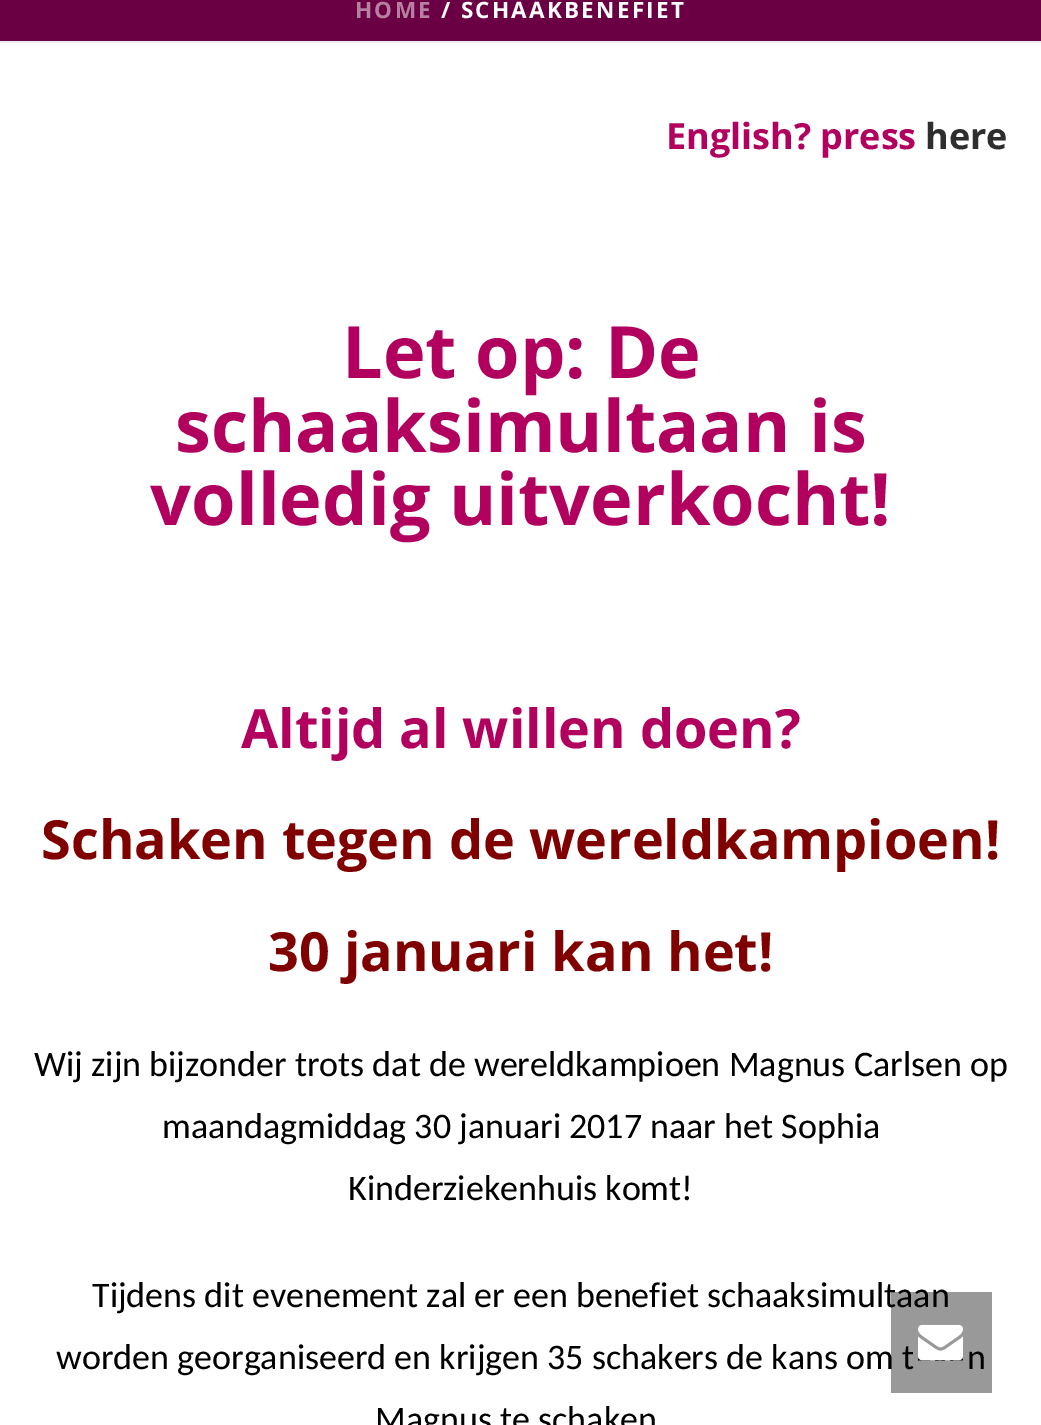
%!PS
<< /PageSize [1041 1425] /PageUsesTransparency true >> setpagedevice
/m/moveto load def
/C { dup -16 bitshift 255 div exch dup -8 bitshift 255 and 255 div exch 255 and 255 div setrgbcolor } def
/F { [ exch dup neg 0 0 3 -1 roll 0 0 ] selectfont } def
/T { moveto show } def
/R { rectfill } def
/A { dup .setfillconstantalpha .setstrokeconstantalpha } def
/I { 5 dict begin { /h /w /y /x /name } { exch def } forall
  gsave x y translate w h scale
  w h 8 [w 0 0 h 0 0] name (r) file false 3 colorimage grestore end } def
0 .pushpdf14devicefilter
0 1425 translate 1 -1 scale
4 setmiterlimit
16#FFFFFF C
0 0 1041 1425 R
16#6A0043 C
0 0 1041 41 R
16#EDEDED C
0 41 1041 2 R
/OpenSans-Bold 22.5 F
16#B580A1 C
355 18 m 2.25 0 (HOME) ashow
16#FFFFFF C
441 18 m 2.25 0 (/ SCHAAKBENEFIET) ashow
/OpenSans-Bold 36 F
16#B1005D C
(English? press) 666 149 T
16#2E2E2E C
(here) 925 149 T
/OpenSans-Bold 72 F
16#B1005D C
(Let op: De) 342 378 T
(schaaksimultaan is) 175 452 T
(volledig uitverkocht!) 150 525 T
/OpenSans-Bold 54 F
(Altijd al willen doen?) 241 748 T
16#800000 C
(Schaken tegen de wereldkampioen!) 41 859 T
(30 januari kan het!) 268 971 T
/Carlito-Regular 36 F
16#000000 C
(Wij zijn bijzonder trots dat de wereldkampioen Magnus Carlsen op) 34 1076 T
(maandagmiddag 30 januari 2017 naar het Sophia) 162 1138 T
(Kinderziekenhuis komt!) 348 1200 T
(Tijdens dit evenement zal er een benefiet schaaksimultaan) 92 1307 T
(worden georganiseerd en krijgen 35 schakers de kans om t) 56 1369 T
(n) 967 1369 T
(Magnus te schaken) 375 1431 T
0.4 A
891 1292 101 101 R
1 A
(1.rgb) 918 1324 45 37 I
.poppdf14devicefilter showpage
